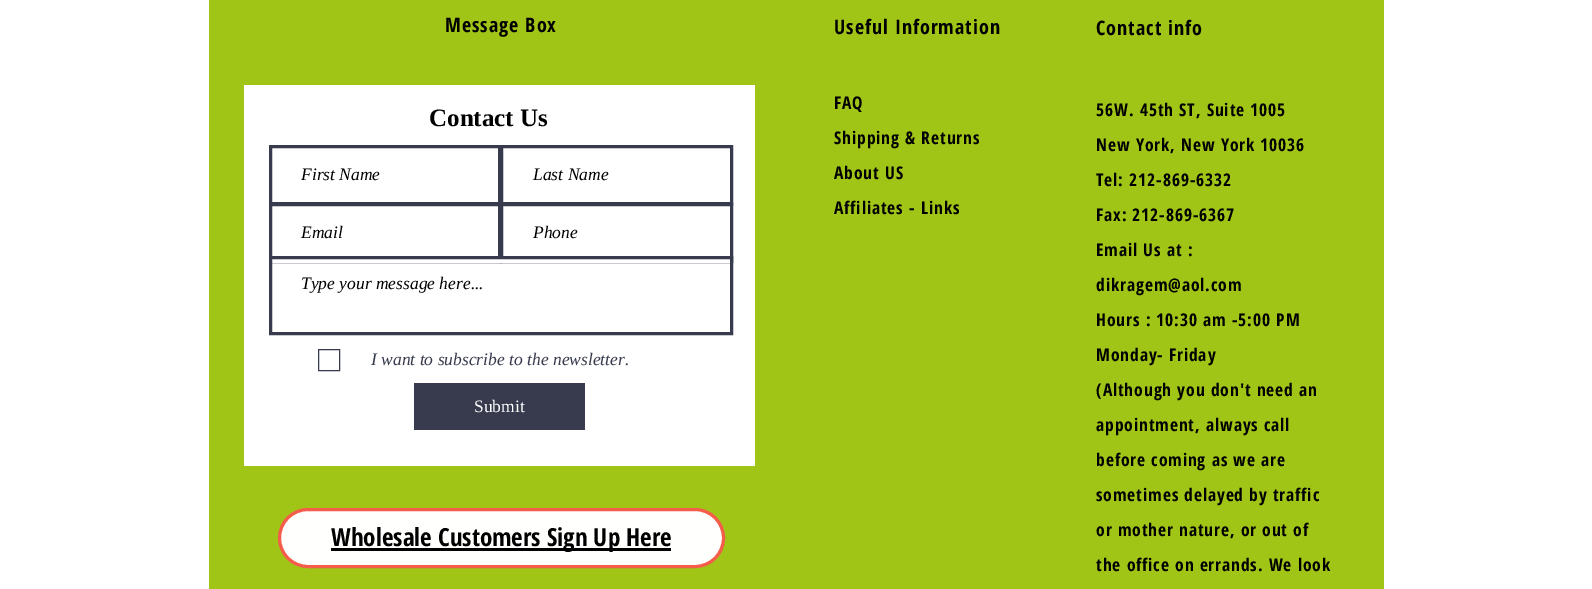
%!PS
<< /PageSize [1592 589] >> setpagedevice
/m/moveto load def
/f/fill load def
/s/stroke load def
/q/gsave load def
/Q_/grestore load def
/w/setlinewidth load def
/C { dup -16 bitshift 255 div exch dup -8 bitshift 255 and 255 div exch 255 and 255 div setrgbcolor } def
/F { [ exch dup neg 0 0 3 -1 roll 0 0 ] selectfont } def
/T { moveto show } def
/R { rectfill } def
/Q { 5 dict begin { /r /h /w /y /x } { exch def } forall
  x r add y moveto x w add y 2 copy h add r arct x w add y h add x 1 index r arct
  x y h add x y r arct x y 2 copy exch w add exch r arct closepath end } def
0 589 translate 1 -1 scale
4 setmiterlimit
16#FFFFFF C
0 0 1592 589 R
16#A1C517 C
209 0 1175 589 R
/OpenSansCondensed-Bold 20 F
16#000000 C
445 32 m 1 0 (Message Box) ashow
834 34 m 1 0 (Useful Information) ashow
1096 35 m 1 0 (Contact info) ashow
16#FFFFFF C
244 85 511 381 R
/LiberationSerif-Bold 25 F
16#000000 C
(Contact Us) 429 126 T
16#373B4D C
3 w
270.5 146.5 229 57 rectstroke
/LiberationSerif-Italic 17.5 F
16#000000 C
(First Name) 301 180 T
16#373B4D C
501.5 146.5 230 57 rectstroke
16#000000 C
(Last Name) 533 180 T
16#373B4D C
270.5 204.5 229 57 rectstroke
16#000000 C
(Email) 301 238 T
16#373B4D C
501.5 204.5 230 57 rectstroke
16#000000 C
(Phone) 533 238 T
16#FFFFFF C
272 259 458 4 R
16#373B4D C
270.5 257.5 461 76 rectstroke
16#000000 C
(Type your message here...) 301 289 T
16#373B4D C
1 w
318.5 349.5 21 21 rectstroke
(I want to subscribe to the newsletter.) 371 365 T
414 383 171 47 R
/LiberationSerif-Regular 17.5 F
16#FFFFFF C
(Submit) 474 412 T
/OpenSansCondensed-Bold 17.5 F
16#000000 C
834 109 m .9 0 (FAQ) ashow
834 144 m .9 0 (Shipping & Returns) ashow
834 179 m .9 0 (About US) ashow
834 214 m .9 0 (Affiliates - Links) ashow
1096 116 m .9 0 (56W. 45th ST, Suite 1005) ashow
1096 151 m .9 0 (New York, New York 10036) ashow
1096 186 m .9 0 (Tel: 212-869-6332) ashow
1096 221 m .9 0 (Fax: 212-869-6367) ashow
1096 256 m .9 0 (Email Us at :) ashow
1096 291 m .9 0 (dikragem@aol.com) ashow
1096 326 m .9 0 (Hours : 10:30 am -5:00 PM) ashow
1096 361 m .9 0 (Monday- Friday) ashow
1096 396 m .9 0 (\(Although you don't need an) ashow
1096 431 m .9 0 (appointment, always call) ashow
1096 466 m .9 0 (before coming as we are) ashow
1096 501 m .9 0 (sometimes delayed by traffic) ashow
1096 536 m .9 0 (or mother nature, or out of) ashow
1096 571 m .9 0 (the office on errands. We look) ashow
16#FFFFFE C
279.5 509.5 444 57 28.5 Q q f Q_
16#F55C4A C
3 w
s
16#000000 C
331 548 340 3 R
/OpenSansCondensed-Bold 25 F
(Wholesale Customers Sign Up Here) 331 546 T
showpage
